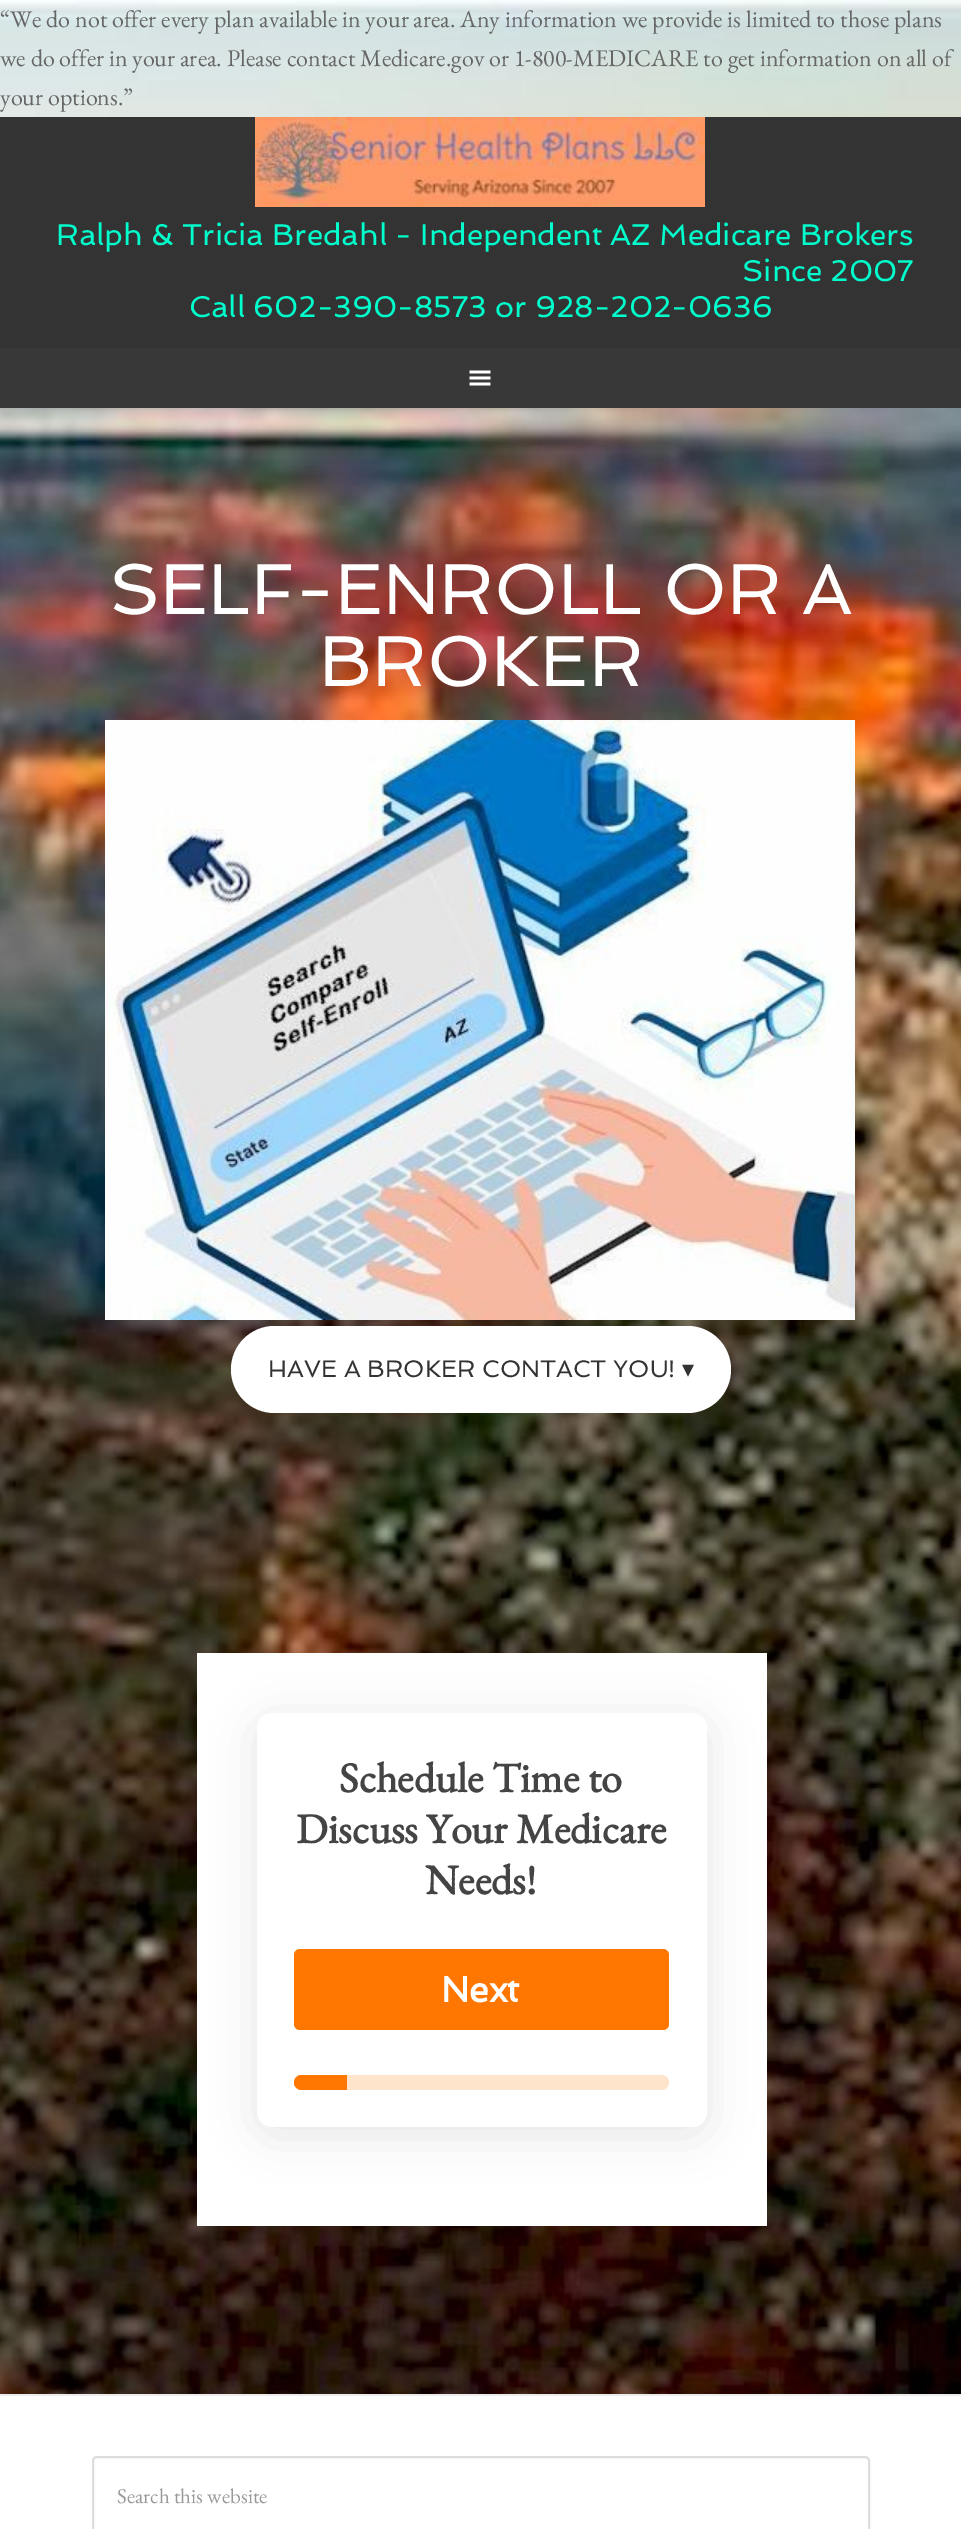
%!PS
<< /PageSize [961 2529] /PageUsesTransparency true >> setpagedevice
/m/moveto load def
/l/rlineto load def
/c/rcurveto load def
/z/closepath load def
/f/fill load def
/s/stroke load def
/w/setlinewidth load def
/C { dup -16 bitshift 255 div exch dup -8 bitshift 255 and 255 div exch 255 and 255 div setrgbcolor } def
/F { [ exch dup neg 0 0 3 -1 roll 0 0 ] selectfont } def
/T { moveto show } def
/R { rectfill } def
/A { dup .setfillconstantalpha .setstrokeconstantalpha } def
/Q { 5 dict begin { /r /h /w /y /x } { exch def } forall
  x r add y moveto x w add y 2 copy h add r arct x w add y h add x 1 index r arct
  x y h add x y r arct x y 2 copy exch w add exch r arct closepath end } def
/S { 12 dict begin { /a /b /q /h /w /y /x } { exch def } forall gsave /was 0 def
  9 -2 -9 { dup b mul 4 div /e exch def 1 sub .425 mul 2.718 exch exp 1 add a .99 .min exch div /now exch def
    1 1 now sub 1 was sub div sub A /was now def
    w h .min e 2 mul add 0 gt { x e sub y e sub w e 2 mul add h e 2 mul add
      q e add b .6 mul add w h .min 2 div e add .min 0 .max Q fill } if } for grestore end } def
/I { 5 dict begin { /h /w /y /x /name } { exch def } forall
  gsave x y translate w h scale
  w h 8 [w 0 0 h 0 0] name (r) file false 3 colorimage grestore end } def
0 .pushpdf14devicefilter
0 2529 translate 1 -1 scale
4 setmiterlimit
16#FFFFFF C
0 0 961 2529 R
(1.rgb) 0 0 961 2394 I
/EBGaramond-Regular 24 F
16#666666 C
(“We do not offer every plan available in your area. Any information we provide is limited to those plans) 0 27 T
(we do offer in your area. Please contact Medicare.gov or 1-800-MEDICARE to get information on all of) 0 66 T
(your options.”) 0 105 T
16#333333 C
0 117 961 231 R
(2.rgb) 255 117 450 90 I
/Spinnaker-Regular 30 F
16#00FFCC C
(Ralph & Tricia Bredahl - Independent AZ Medicare Brokers) 56 245 T
(Since 2007) 742 281 T
(Call 602-390-8573 or 928-202-0636) 189 317 T
16#383838 C
0 348 961 60 R
(3.rgb) 469 370 22 16 I
/Spinnaker-Regular 72 F
16#FFFFFF C
(SELF-ENROLL OR A) 109 614 T
(BROKER) 319 686 T
(4.rgb) 105 720 750 600 I
231 1326 500 87 43.5 Q f
/Spinnaker-Regular 24 F
16#333333 C
(HAVE A BROKER CONTACT YOU!) 268 1377 T
/DejaVuSans-Regular 24 F
(▾) 682 1377 T
16#FFFFFF C
197 1653 570 573 R
16#000000 C
257 1721 450 414 15 22.5 .1 S
16#FFFFFF C
257 1713 450 414 15 Q f
/EBGaramond-Bold 42 F
16#444444 C
(Schedule Time to) 339 1792 T
(Discuss Your Medicare) 296 1843 T
(Needs!) 425 1894 T
16#FF7700 C
294 1949 375 81 6 Q f
/Spinnaker-Bold 36 F
16#FFFFFF C
(Next) 441 2002 T
16#FFE4CC C
294 2075 375 15 7.5 Q f
16#FF7700 C
301.5 2075 m 45.5 0 l 0 15 l -45.5 0 l -4 0 -7.5 -3.5 -7.5 -7.5 c 0 -4 3.5 -7.5 7.5 -7.5 c z f
16#ECECEC C
0 2394 961 2 R
16#DDDDDD C
2 w
93 2457 776 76 4 Q s
/EBGaramond-Regular 21 F
16#999999 C
(Search this website) 117 2503 T
.poppdf14devicefilter showpage
